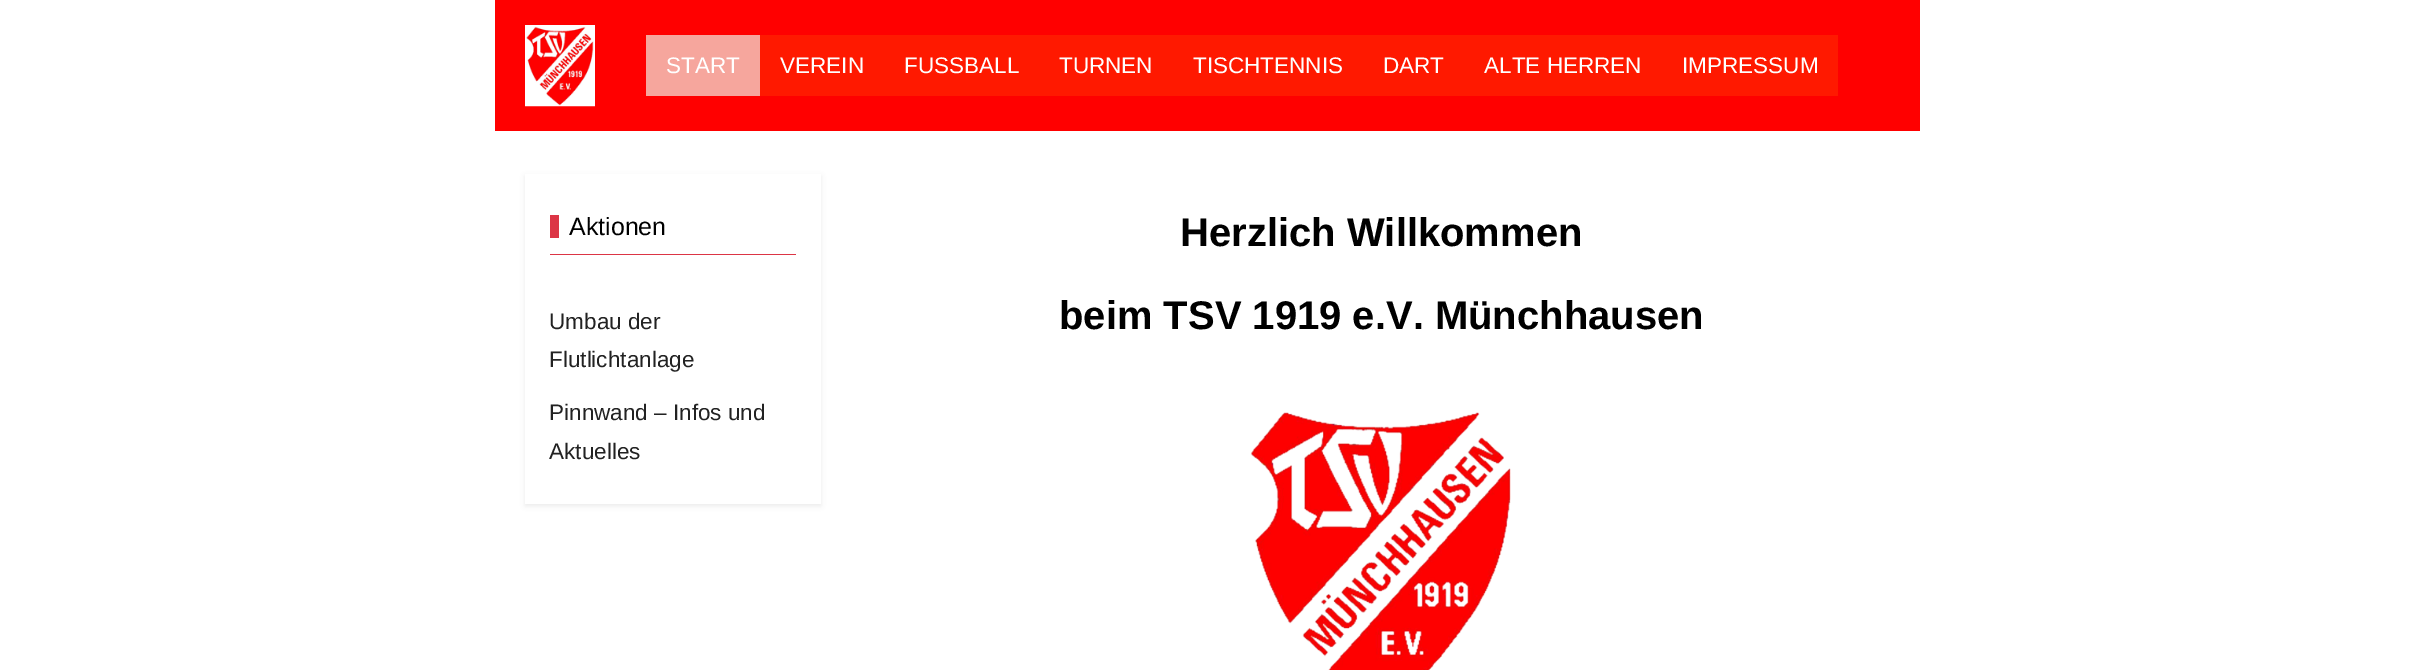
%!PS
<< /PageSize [2413 670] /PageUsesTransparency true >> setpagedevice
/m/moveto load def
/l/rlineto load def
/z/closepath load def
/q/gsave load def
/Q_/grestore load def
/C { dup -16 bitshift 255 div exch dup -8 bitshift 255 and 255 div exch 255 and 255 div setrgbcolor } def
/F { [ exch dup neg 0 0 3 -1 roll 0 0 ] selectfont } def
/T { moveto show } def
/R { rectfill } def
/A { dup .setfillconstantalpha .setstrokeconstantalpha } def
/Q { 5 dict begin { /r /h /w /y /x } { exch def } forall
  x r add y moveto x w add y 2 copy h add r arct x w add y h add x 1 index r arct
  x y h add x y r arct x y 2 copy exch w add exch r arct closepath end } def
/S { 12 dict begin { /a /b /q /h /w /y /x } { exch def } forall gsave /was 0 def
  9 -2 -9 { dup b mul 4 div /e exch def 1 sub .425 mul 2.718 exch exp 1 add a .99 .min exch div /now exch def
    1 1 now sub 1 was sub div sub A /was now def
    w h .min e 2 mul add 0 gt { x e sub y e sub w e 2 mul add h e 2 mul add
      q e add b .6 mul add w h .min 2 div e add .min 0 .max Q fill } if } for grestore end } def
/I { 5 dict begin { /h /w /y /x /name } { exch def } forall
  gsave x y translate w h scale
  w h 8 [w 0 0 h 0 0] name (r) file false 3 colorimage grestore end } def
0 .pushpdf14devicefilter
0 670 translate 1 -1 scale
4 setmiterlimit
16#FFFFFF C
0 0 2413 670 R
16#FF0000 C
495 0 1425 131 R
(1.rgb) 525 25 70 82 I
16#F6A69D C
646 35 114 61 R
/LiberationSans-Regular 22.5 F
16#FFFFFF C
(START) 666 73 T
16#FF1900 C
760 35 1078 61 R
16#FFFFFF C
(VEREIN) 780 73 T
(FUSSBALL) 904 73 T
(TURNEN) 1059 73 T
(TISCHTENNIS) 1193 73 T
(DART) 1383 73 T
(ALTE HERREN) 1484 73 T
(IMPRESSUM) 1682 73 T
q
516 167 m 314 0 l 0 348 l -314 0 l z 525 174 m 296 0 l 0 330 l -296 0 l z eoclip newpath
16#000000 C
525 176 296 330 0 2.5 .07 S
Q_
16#DC3545 C
550 254 246 1 R
550 215 9 23 R
/LiberationSans-Regular 25 F
16#000000 C
(Aktionen) 569 235 T
/LiberationSans-Regular 22.5 F
16#222222 C
(Umbau der) 549 329 T
(Flutlichtanlage) 549 367 T
(Pinnwand – Infos und) 549 420 T
(Aktuelles) 549 459 T
/LiberationSans-Bold 40 F
16#000000 C
(Herzlich Willkommen) 1180 246 T
(beim TSV 1919 e.V. Münchhausen) 1059 329 T
(2.rgb) 1250 412 261 258 I
.poppdf14devicefilter showpage
